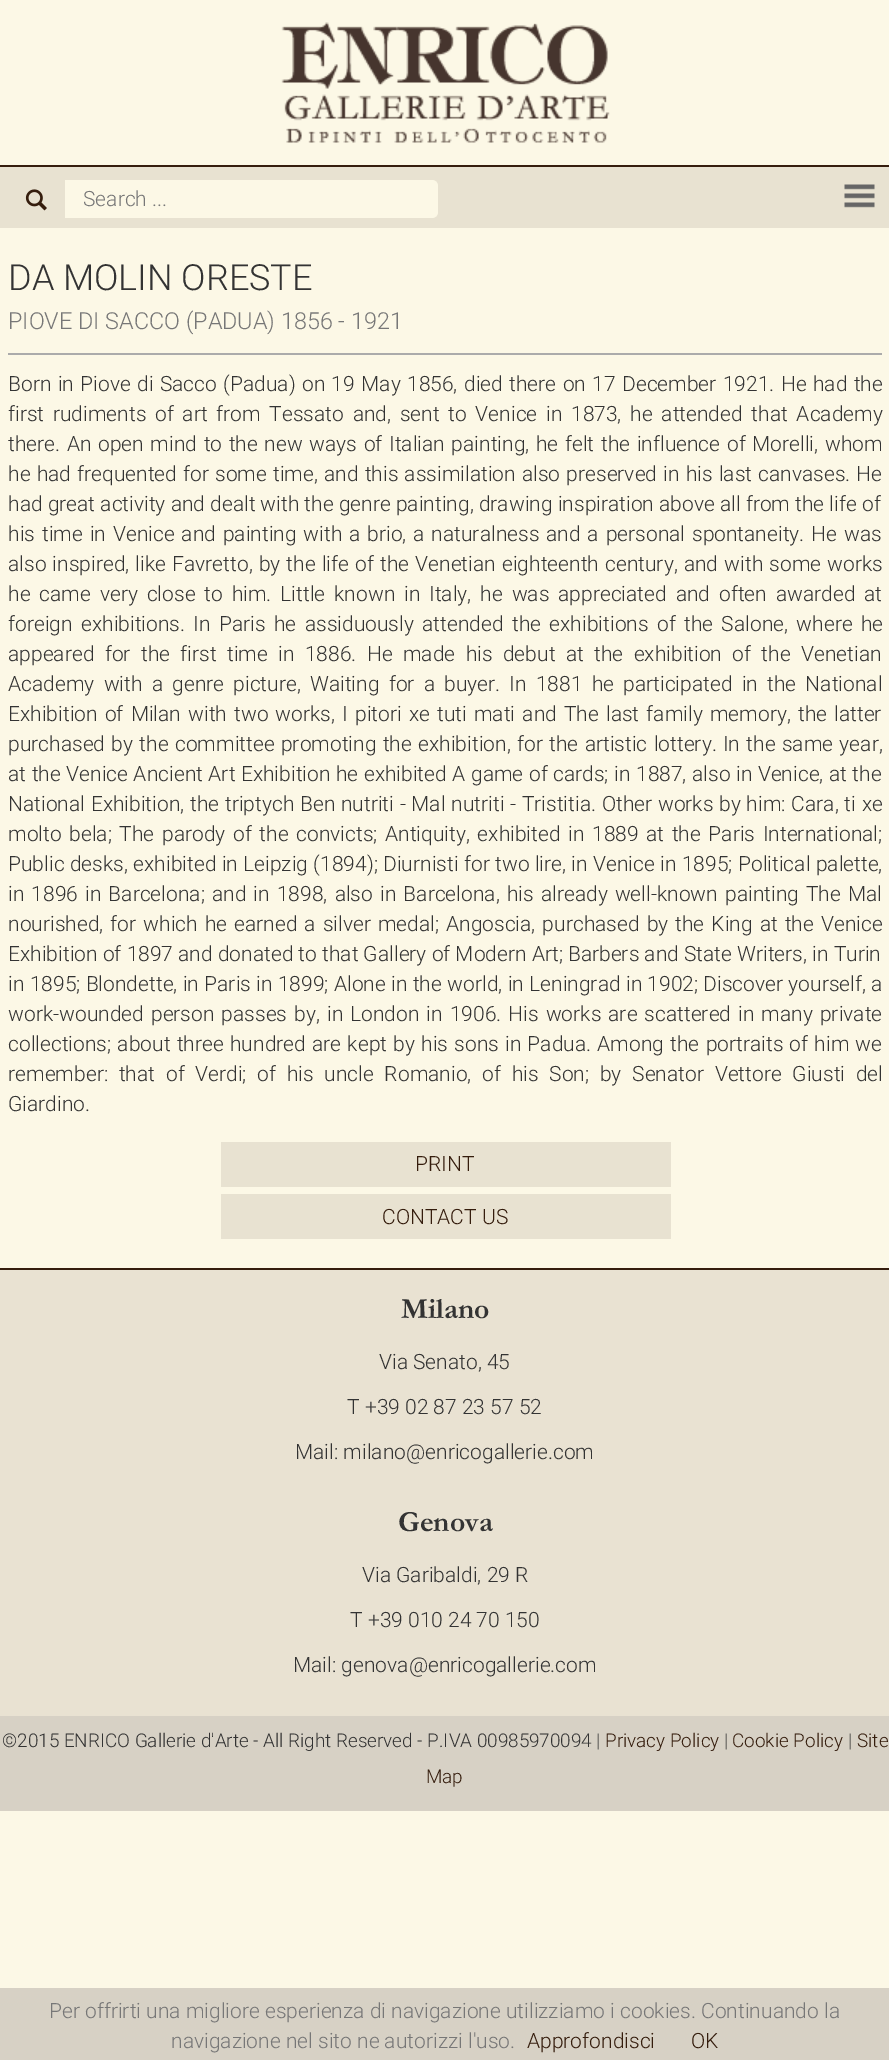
%!PS
<< /PageSize [889 2060] >> setpagedevice
/m/moveto load def
/l/rlineto load def
/c/rcurveto load def
/z/closepath load def
/f/fill load def
/C { dup -16 bitshift 255 div exch dup -8 bitshift 255 and 255 div exch 255 and 255 div setrgbcolor } def
/F { [ exch dup neg 0 0 3 -1 roll 0 0 ] selectfont } def
/T { moveto show } def
/R { rectfill } def
/I { 5 dict begin { /h /w /y /x /name } { exch def } forall
  gsave x y translate w h scale
  w h 8 [w 0 0 h 0 0] name (r) file false 3 colorimage grestore end } def
0 2060 translate 1 -1 scale
4 setmiterlimit
16#FCF8E6 C
0 0 889 2060 R
(1.rgb) 281 22 329 121 I
16#E8E2D1 C
0 167 889 61 R
16#351D0D C
0 165 889 2 R
(2.rgb) 25 189 22 22 I
16#FCF8E6 C
65 180 m 367 0 l 3.5 0 6 2.5 6 6 c 0 26 l 0 3.5 -2.5 6 -6 6 c -367 0 l z f
/Roboto-Light 21 F
16#777777 C
(Search ...) 83 206 T
(3.rgb) 844 184 31 24 I
16#ABABAB C
8 353 874 2 R
/Roboto-Light 36 F
16#333333 C
(DA MOLIN ORESTE) 8 290 T
/Roboto-Light 23.4 F
16#777777 C
(PIOVE DI SACCO \(PADUA\) 1856 - 1921) 8 329 T
/Roboto-Light 21 F
16#333333 C
8 391 m 1.25 0 32 (Born in Piove di Sacco \(Padua\) on 19 May 1856, died there on 17 December 1921. He had the) widthshow
8 421 m 3.6 0 32 (first rudiments of art from Tessato and, sent to Venice in 1873, he attended that Academy) widthshow
8 451 m 1.5 0 32 (there. An open mind to the new ways of Italian painting, he felt the influence of Morelli, whom) widthshow
8 481 m 1 0 32 (he had frequented for some time, and this assimilation also preserved in his last canvases. He) widthshow
(had great activity and dealt with the genre painting, drawing inspiration above all from the life of) 8 511 T
8 541 m 1.75 0 32 (his time in Venice and painting with a brio, a naturalness and a personal spontaneity. He was) widthshow
8 571 m 1 0 32 (also inspired, like Favretto, by the life of the Venetian eighteenth century, and with some works) widthshow
8 601 m 3.75 0 32 (he came very close to him. Little known in Italy, he was appreciated and often awarded at) widthshow
8 631 m 3.25 0 32 (foreign exhibitions. In Paris he assiduously attended the exhibitions of the Salone, where he) widthshow
8 661 m 5.25 0 32 (appeared for the first time in 1886. He made his debut at the exhibition of the Venetian) widthshow
8 691 m 4.1 0 32 (Academy with a genre picture, Waiting for a buyer. In 1881 he participated in the National) widthshow
8 721 m 2 0 32 (Exhibition of Milan with two works, I pitori xe tuti mati and The last family memory, the latter) widthshow
8 751 m 1.2 0 32 (purchased by the committee promoting the exhibition, for the artistic lottery. In the same year,) widthshow
8 781 m .4 0 32 (at the Venice Ancient Art Exhibition he exhibited A game of cards; in 1887, also in Venice, at the) widthshow
8 811 m .6 0 32 (National Exhibition, the triptych Ben nutriti - Mal nutriti - Tristitia. Other works by him: Cara, ti xe) widthshow
8 841 m 2.5 0 32 (molto bela; The parody of the convicts; Antiquity, exhibited in 1889 at the Paris International;) widthshow
8 871 m .25 0 32 (Public desks, exhibited in Leipzig \(1894\); Diurnisti for two lire, in Venice in 1895; Political palette,) widthshow
8 901 m 2 0 32 (in 1896 in Barcelona; and in 1898, also in Barcelona, his already well-known painting The Mal) widthshow
8 931 m 1.9 0 32 (nourished, for which he earned a silver medal; Angoscia, purchased by the King at the Venice) widthshow
(Exhibition of 1897 and donated to that Gallery of Modern Art; Barbers and State Writers, in Turin) 8 961 T
8 991 m .2 0 32 (in 1895; Blondette, in Paris in 1899; Alone in the world, in Leningrad in 1902; Discover yourself, a) widthshow
8 1021 m 1.9 0 32 (work-wounded person passes by, in London in 1906. His works are scattered in many private) widthshow
8 1051 m 1.1 0 32 (collections; about three hundred are kept by his sons in Padua. Among the portraits of him we) widthshow
8 1081 m 5.6 0 32 (remember: that of Verdi; of his uncle Romanio, of his Son; by Senator Vettore Giusti del) widthshow
(Giardino.) 8 1111 T
16#E8E2D1 C
221 1142 450 45 R
16#351D0D C
(PRINT) 415 1171 T
16#E8E2D1 C
221 1194 450 45 R
16#351D0D C
(CONTACT US) 382 1224 T
16#E9E2D2 C
0 1270 889 446 R
16#351D0D C
0 1268 889 2 R
/Garamond-Bold 29.5 F
16#333333 C
(Milano) 401 1318 T
/Roboto-Light 21 F
(Via Senato, 45) 379 1369 T
(T +39 02 87 23 57 52) 347 1414 T
(Mail: milano@enricogallerie.com) 295 1459 T
/Garamond-Bold 29.5 F
(Genova) 398 1531 T
/Roboto-Light 21 F
(Via Garibaldi, 29 R) 362 1582 T
(T +39 010 24 70 150) 350 1627 T
(Mail: genova@enricogallerie.com) 293 1672 T
16#D7D1C5 C
0 1716 889 95 R
/Roboto-Light 18.9 F
16#333333 C
(©2015 ENRICO Gallerie d'Arte - All Right Reserved - P.IVA 00985970094 |) 2 1747 T
16#351D0D C
(Privacy Policy) 605 1747 T
16#333333 C
(|) 724 1747 T
16#351D0D C
(Cookie Policy) 732 1747 T
16#333333 C
(|) 848 1747 T
16#351D0D C
(Site) 857 1747 T
(Map) 426 1783 T
16#D7D1C5 C
0 1988 889 72 R
/Roboto-Light 21 F
16#777777 C
(Per offrirti una migliore esperienza di navigazione utilizziamo i cookies. Continuando la) 49 2018 T
(navigazione nel sito ne autorizzi l'uso.) 171 2048 T
16#351D0D C
(Approfondisci) 527 2048 T
(OK) 691 2048 T
showpage
